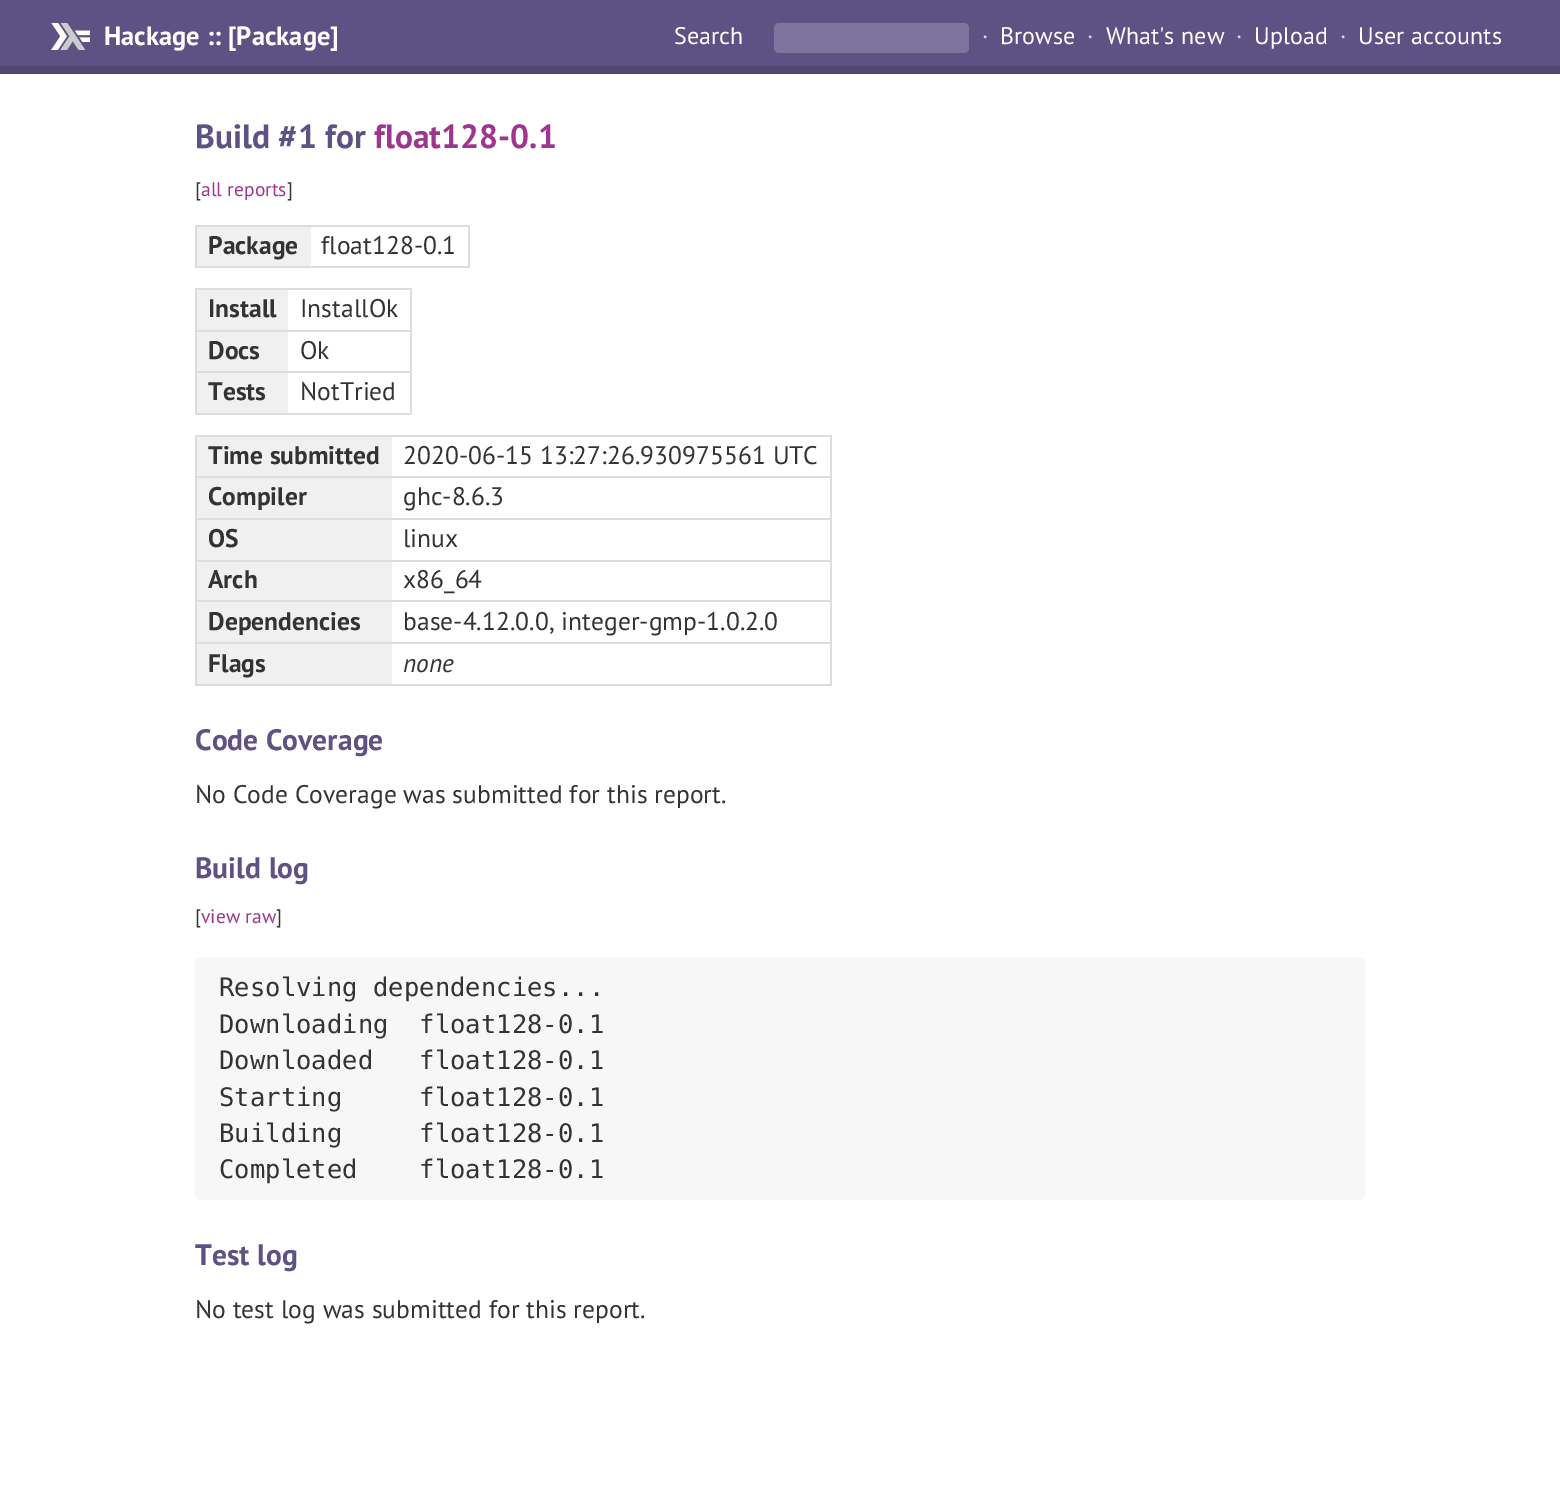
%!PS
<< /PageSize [1560 1496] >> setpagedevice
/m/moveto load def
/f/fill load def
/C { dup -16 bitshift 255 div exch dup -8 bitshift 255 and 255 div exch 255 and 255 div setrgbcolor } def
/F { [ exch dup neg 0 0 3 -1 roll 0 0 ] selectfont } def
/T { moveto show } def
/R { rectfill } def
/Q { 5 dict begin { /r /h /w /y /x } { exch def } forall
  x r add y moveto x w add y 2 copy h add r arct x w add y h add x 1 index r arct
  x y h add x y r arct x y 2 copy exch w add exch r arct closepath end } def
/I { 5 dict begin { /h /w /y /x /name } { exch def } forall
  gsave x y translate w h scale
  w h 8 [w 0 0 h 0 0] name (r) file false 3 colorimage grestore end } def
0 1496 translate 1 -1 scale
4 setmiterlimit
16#FFFFFF C
0 0 1560 1496 R
16#5E5184 C
0 0 1560 66 R
16#524673 C
0 66 1560 8 R
(1.rgb) 51 23 39 27 I
/PTSans-Bold 26.5 F
16#FFFFFF C
104 45 m .05 0 (Hackage :: [Package]) ashow
/PTSans-Regular 24 F
(Search) 674 44 T
16#7E749D C
774 23 195 30 5 Q f
16#DDDDDD C
982 44 m .05 0 (·) ashow
16#FFFFFF C
1000 44 m .05 0 (Browse) ashow
16#DDDDDD C
1087 44 m .05 0 (·) ashow
16#FFFFFF C
1106 44 m .05 0 (What's new) ashow
16#DDDDDD C
1236 44 m .05 0 (·) ashow
16#FFFFFF C
1254 44 m .05 0 (Upload) ashow
16#DDDDDD C
1340 44 m .05 0 (·) ashow
16#FFFFFF C
1358 44 m .05 0 (User accounts) ashow
/PTSans-Bold 33.5 F
16#5E5184 C
195 148 m .05 0 (Build #1 for) ashow
16#9E358F C
374 148 m .05 0 (float128-0.1) ashow
/PTSans-Regular 19.5 F
16#333333 C
195 196 m .05 0 ([) ashow
16#9E358F C
201 196 m .05 0 (all reports) ashow
16#333333 C
287 196 m .05 0 (]) ashow
16#DDDDDD C
195 225 275 2 R
468 225 2 42 R
195 266 275 2 R
195 225 2 42 R
16#F0F0F0 C
197 227 114 39 R
/PTSans-Bold 25.5 F
16#333333 C
208 254 m .05 0 (Package) ashow
/PTSans-Regular 25.5 F
321 254 m .05 0 (float128-0.1) ashow
16#DDDDDD C
195 288 216 2 R
410 288 2 126 R
195 413 216 2 R
195 288 2 126 R
16#F0F0F0 C
197 290 91 40 R
/PTSans-Bold 25.5 F
16#333333 C
208 317 m .05 0 (Install) ashow
/PTSans-Regular 25.5 F
300 317 m .05 0 (InstallOk) ashow
16#DDDDDD C
195 330 216 2 R
16#F0F0F0 C
197 332 91 39 R
/PTSans-Bold 25.5 F
16#333333 C
208 359 m .05 0 (Docs) ashow
/PTSans-Regular 25.5 F
300 359 m .05 0 (Ok) ashow
16#DDDDDD C
195 371 216 2 R
16#F0F0F0 C
197 373 91 40 R
/PTSans-Bold 25.5 F
16#333333 C
208 400 m .05 0 (Tests) ashow
/PTSans-Regular 25.5 F
300 400 m .05 0 (NotTried) ashow
16#DDDDDD C
195 435 636 2 R
830 435 2 251 R
195 684 636 2 R
195 435 2 251 R
16#F0F0F0 C
197 437 195 39 R
/PTSans-Bold 25.5 F
16#333333 C
208 464 m .05 0 (Time submitted) ashow
/PTSans-Regular 25.5 F
403 464 m .05 0 (2020-06-15 13:27:26.930975561 UTC) ashow
16#DDDDDD C
195 476 636 2 R
16#F0F0F0 C
197 478 195 40 R
/PTSans-Bold 25.5 F
16#333333 C
208 505 m .05 0 (Compiler) ashow
/PTSans-Regular 25.5 F
403 505 m .05 0 (ghc-8.6.3) ashow
16#DDDDDD C
195 518 636 2 R
16#F0F0F0 C
197 520 195 40 R
/PTSans-Bold 25.5 F
16#333333 C
208 547 m .05 0 (OS) ashow
/PTSans-Regular 25.5 F
403 547 m .05 0 (linux) ashow
16#DDDDDD C
195 560 636 2 R
16#F0F0F0 C
197 562 195 38 R
/PTSans-Bold 25.5 F
16#333333 C
208 588 m .05 0 (Arch) ashow
/PTSans-Regular 25.5 F
403 588 m .05 0 (x86_64) ashow
16#DDDDDD C
195 600 636 2 R
16#F0F0F0 C
197 602 195 40 R
/PTSans-Bold 25.5 F
16#333333 C
208 630 m .05 0 (Dependencies) ashow
/PTSans-Regular 25.5 F
403 630 m .05 0 (base-4.12.0.0, integer-gmp-1.0.2.0) ashow
16#DDDDDD C
195 642 636 2 R
16#F0F0F0 C
197 644 195 40 R
/PTSans-Bold 25.5 F
16#333333 C
208 672 m .05 0 (Flags) ashow
/PTSans-Italic 25.5 F
403 672 m .05 0 (none) ashow
/PTSans-Bold 29.5 F
16#5E5184 C
195 750 m .05 0 (Code Coverage) ashow
/PTSans-Regular 25.5 F
16#333333 C
195 803 m .05 0 (No Code Coverage was submitted for this report.) ashow
/PTSans-Bold 29.5 F
16#5E5184 C
195 878 m .05 0 (Build log) ashow
/PTSans-Regular 19.5 F
16#333333 C
195 923 m .05 0 ([) ashow
16#9E358F C
201 923 m .05 0 (view raw) ashow
16#333333 C
276 923 m .05 0 (]) ashow
16#F7F7F7 C
195 957 1170 243 5 Q f
/DejaVuSansMono-Regular 25.5 F
16#333333 C
219 996 m .05 0 (Resolving dependencies...) ashow
219 1033 m .05 0 (Downloading  float128-0.1) ashow
219 1069 m .05 0 (Downloaded   float128-0.1) ashow
219 1106 m .05 0 (Starting     float128-0.1) ashow
219 1142 m .05 0 (Building     float128-0.1) ashow
219 1178 m .05 0 (Completed    float128-0.1) ashow
/PTSans-Bold 29.5 F
16#5E5184 C
195 1265 m .05 0 (Test log) ashow
/PTSans-Regular 25.5 F
16#333333 C
195 1318 m .05 0 (No test log was submitted for this report.) ashow
showpage
